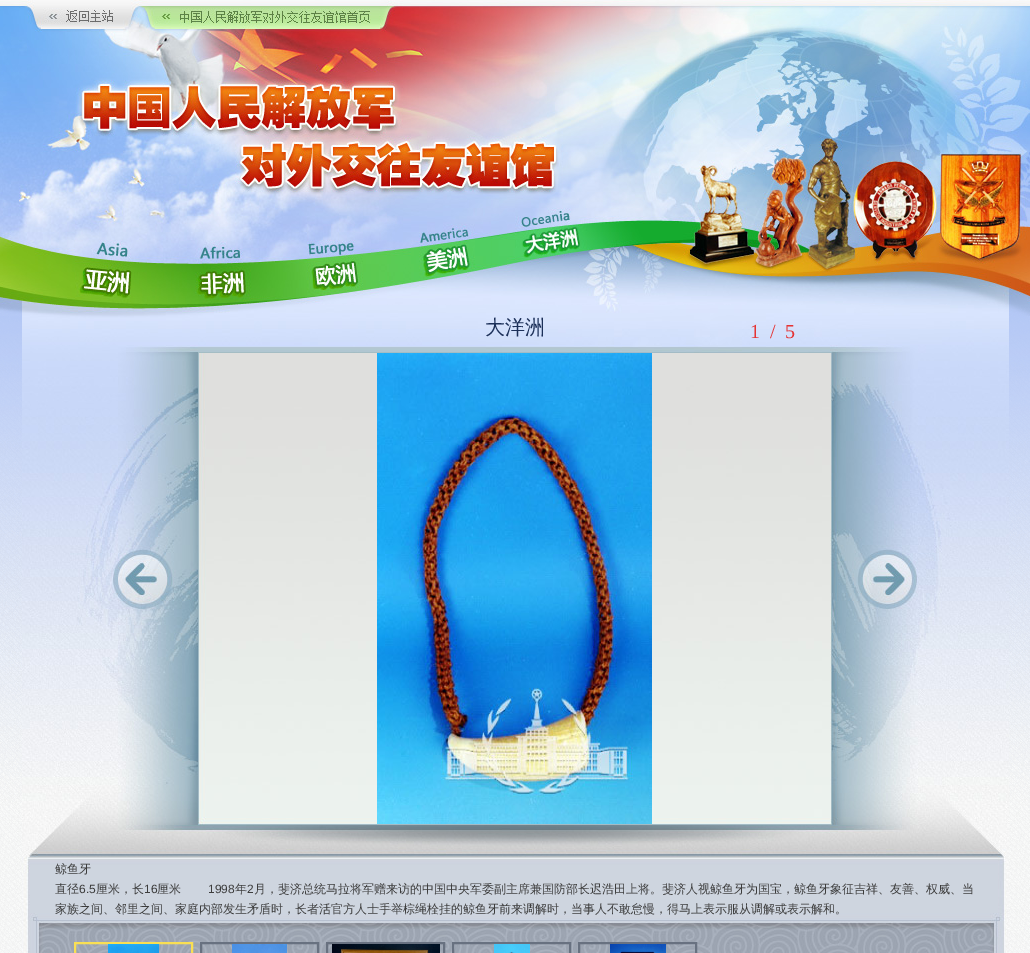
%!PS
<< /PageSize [1030 953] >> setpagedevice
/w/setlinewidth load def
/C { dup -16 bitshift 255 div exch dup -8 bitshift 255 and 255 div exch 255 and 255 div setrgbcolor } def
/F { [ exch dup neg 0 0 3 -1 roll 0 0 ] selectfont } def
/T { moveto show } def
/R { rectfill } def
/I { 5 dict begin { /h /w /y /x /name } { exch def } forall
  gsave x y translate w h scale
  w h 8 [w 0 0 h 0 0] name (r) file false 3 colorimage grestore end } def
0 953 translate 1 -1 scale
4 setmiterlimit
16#FFFFFF C
0 0 1030 953 R
(1.rgb) 0 840 1030 113 I
(2.rgb) 0 316 1030 524 I
(3.rgb) 0 0 1030 305 I
(4.rgb) 22 305 987 648 I
(5.rgb) 0 305 1030 11 I
/WenQuanYiZenHei-Medium 20 F
16#1C3059 C
(大洋洲) 485 334 T
/LiberationSerif-Regular 20 F
16#E53333 C
(1) 750 338 T
(/) 770 338 T
(5) 785 338 T
(6.rgb) 377 353 275 471 I
/WenQuanYiZenHei-Medium 12 F
16#3D3D3D C
(鲸鱼牙) 55 873 T
(直径) 55 893 T
/LiberationSans-Regular 12 F
(6.5) 79 893 T
/WenQuanYiZenHei-Medium 12 F
(厘米，长) 96 893 T
/LiberationSans-Regular 12 F
(16) 144 893 T
/WenQuanYiZenHei-Medium 12 F
(厘米) 157 893 T
/LiberationSans-Regular 12 F
(1998) 208 893 T
/WenQuanYiZenHei-Medium 12 F
(年) 235 893 T
/LiberationSans-Regular 12 F
(2) 247 893 T
/WenQuanYiZenHei-Medium 12 F
(月，斐济总统马拉将军赠来访的中国中央军委副主席兼国防部长迟浩田上将。斐济人视鲸鱼牙为国宝，鲸鱼牙象征吉祥、友善、权威、当) 254 893 T
(家族之间、邻里之间、家庭内部发生矛盾时，长者活官方人士手举棕绳栓挂的鲸鱼牙前来调解时，当事人不敢怠慢，得马上表示服从调解或表示解和。) 55 913 T
16#F9DF53 C
2 w
75 943 117 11 rectstroke
(7.rgb) 108 944 51 9 I
16#687180 C
201 943 117 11 rectstroke
(8.rgb) 232 944 55 9 I
327 943 117 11 rectstroke
(9.rgb) 332 944 108 9 I
453 943 117 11 rectstroke
(10.rgb) 494 944 36 9 I
579 943 117 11 rectstroke
(11.rgb) 610 944 56 9 I
showpage
